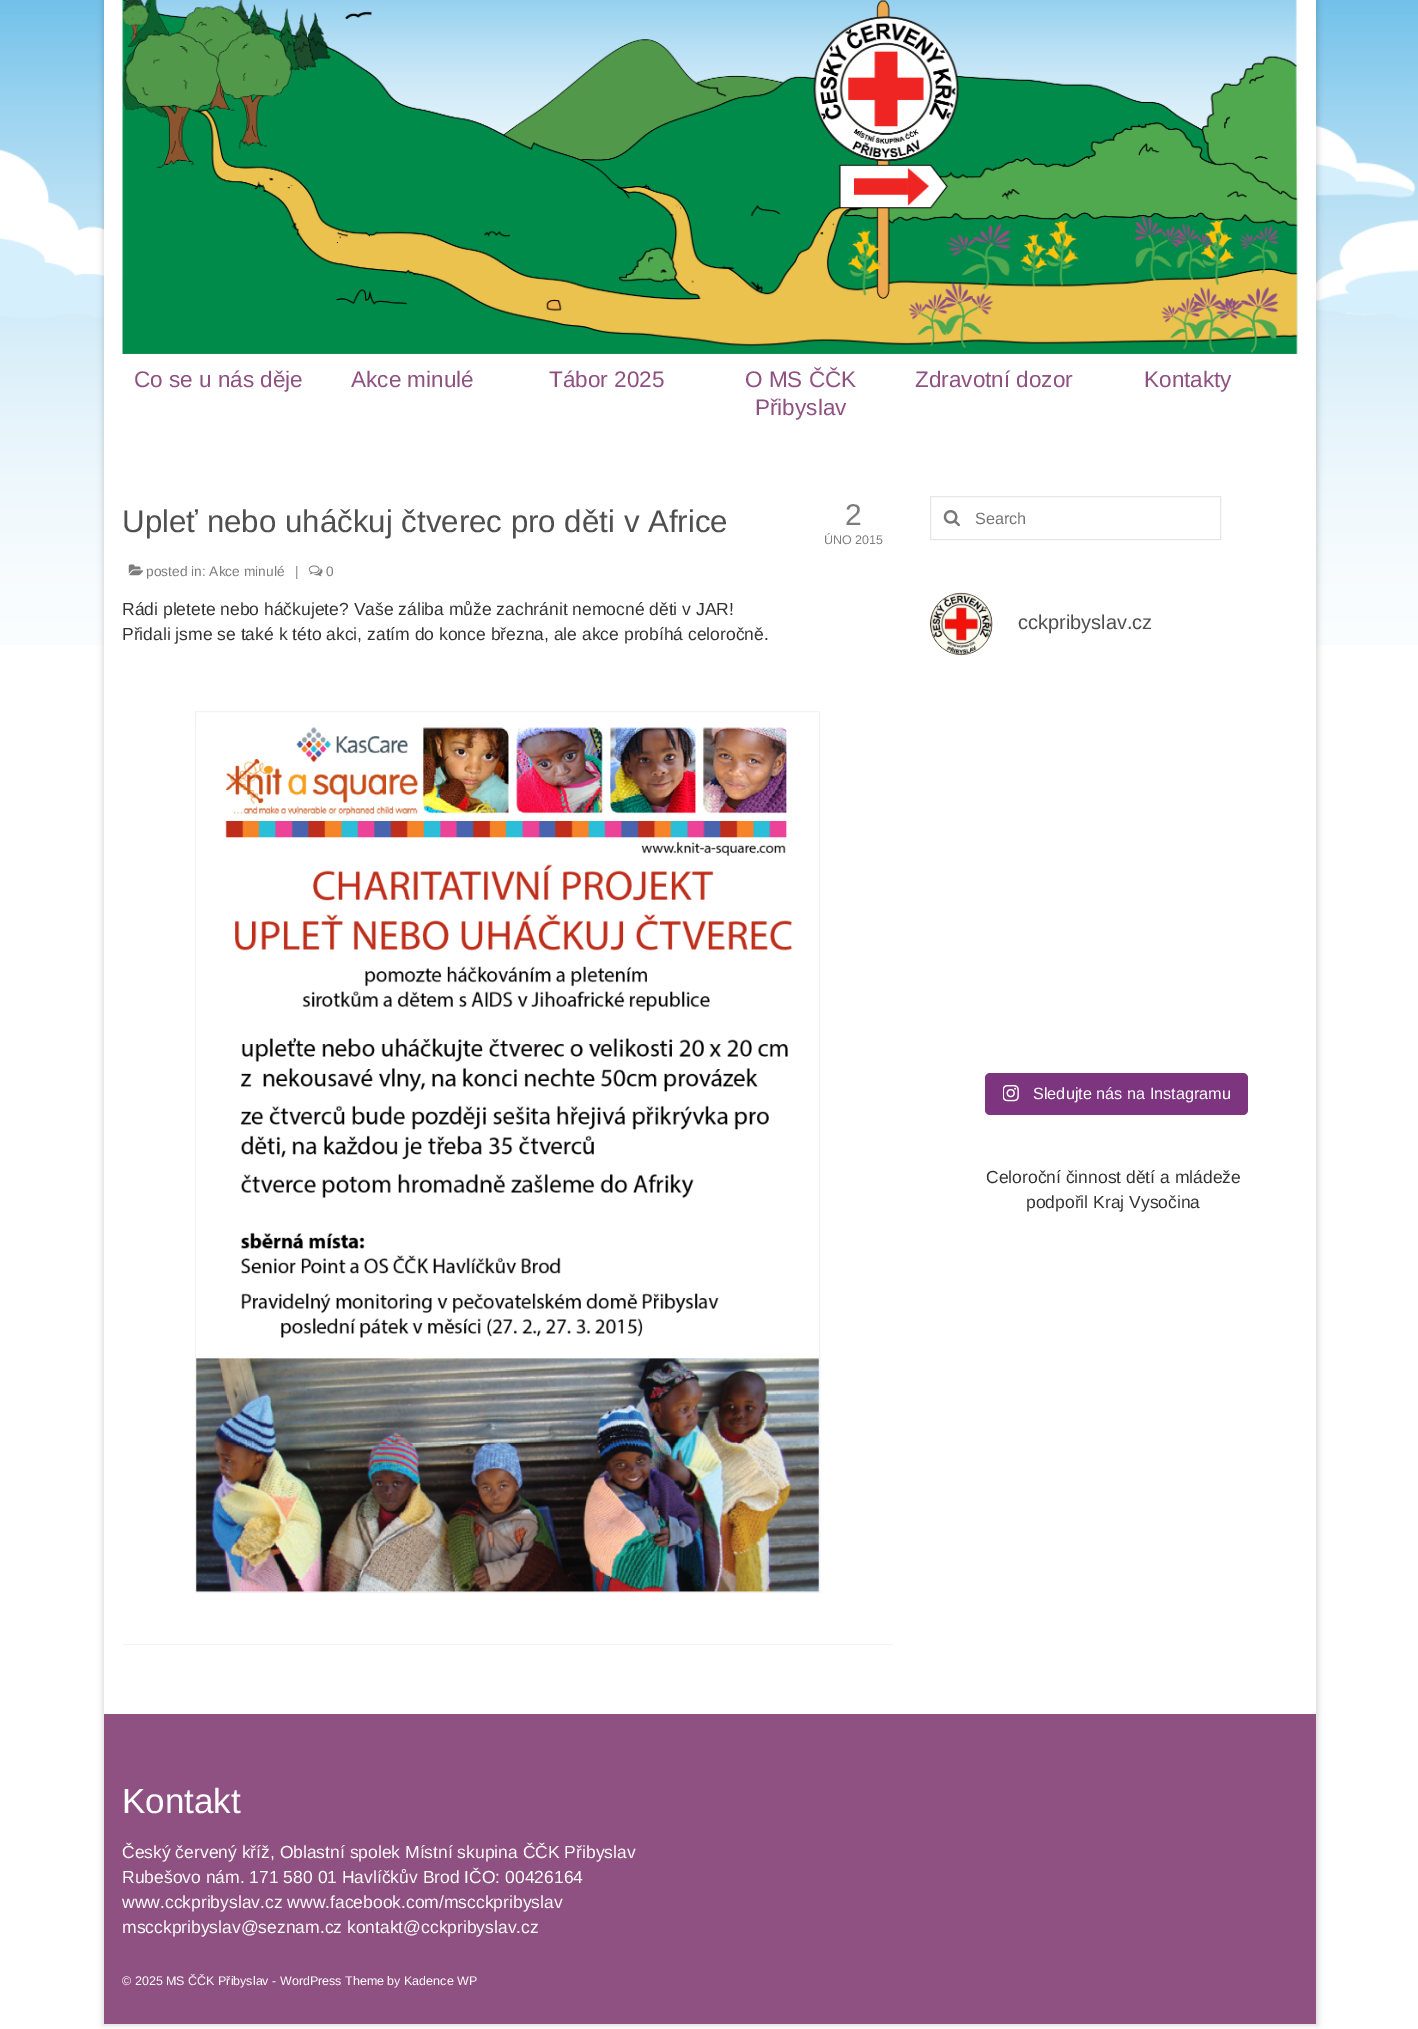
%!PS
<< /PageSize [1418 2029] /PageUsesTransparency true >> setpagedevice
/f/fill load def
/C { dup -16 bitshift 255 div exch dup -8 bitshift 255 and 255 div exch 255 and 255 div setrgbcolor } def
/F { [ exch dup neg 0 0 3 -1 roll 0 0 ] selectfont } def
/T { moveto show } def
/R { rectfill } def
/A { dup .setfillconstantalpha .setstrokeconstantalpha } def
/Q { 5 dict begin { /r /h /w /y /x } { exch def } forall
  x r add y moveto x w add y 2 copy h add r arct x w add y h add x 1 index r arct
  x y h add x y r arct x y 2 copy exch w add exch r arct closepath end } def
/S { 12 dict begin { /a /b /q /h /w /y /x } { exch def } forall gsave /was 0 def
  9 -2 -9 { dup b mul 4 div /e exch def 1 sub .425 mul 2.718 exch exp 1 add a .99 .min exch div /now exch def
    1 1 now sub 1 was sub div sub A /was now def
    w h .min e 2 mul add 0 gt { x e sub y e sub w e 2 mul add h e 2 mul add
      q e add b .6 mul add w h .min 2 div e add .min 0 .max Q fill } if } for grestore end } def
/I { 5 dict begin { /h /w /y /x /name } { exch def } forall
  gsave x y translate w h scale
  w h 8 [w 0 0 h 0 0] name (r) file false 3 colorimage grestore end } def
0 .pushpdf14devicefilter
0 2029 translate 1 -1 scale
4 setmiterlimit
16#FFFFFF C
0 0 1418 2029 R
(1.rgb) 0 0 1418 645 I
16#000000 C
103 -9 1215 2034 0 3 .16 S
16#FFFFFF C
104 0 1212 1714 R
(2.rgb) 122 0 1176 354 I
/LiberationSans-Regular 22.5 F
16#8F5182 C
(Co se u nás děje) 134 387 T
(Akce minulé) 351 387 T
(Tábor 2025) 549 387 T
(O MS ČČK) 745 387 T
(Přibyslav) 755 415 T
(Zdravotní dozor) 915 387 T
(Kontakty) 1144 387 T
/LiberationSans-Regular 31.25 F
16#4F4F4F C
(Upleť nebo uháčkuj čtverec pro děti v Africe) 122 532 T
(3.rgb) 128 564 16 12 I
/LiberationSans-Regular 13.75 F
16#7C7C7C C
(posted in: Akce minulé) 146 576 T
(|) 295 576 T
(4.rgb) 308 565 15 12 I
(0) 326 576 T
/LiberationSans-Regular 30 F
(2) 845 525 T
/LiberationSans-Regular 12.5 F
(ÚNO 2015) 824 544 T
/LiberationSans-Regular 17.5 F
16#333333 C
(Rádi pletete nebo háčkujete? Vaše záliba může zachránit nemocné děti v JAR!) 122 615 T
(Přidali jsme se také k této akci, zatím do konce března, ale akce probíhá celoročně.) 122 640 T
0.05 A
16#000000 C
195.5 711.5 624 881 rectstroke
1 A
(5.rgb) 196 727 623 865 I
16#F2F2F2 C
123 1644 770 1 R
16#E7E7E7 C
930.5 496.5 290 43 rectstroke
(6.rgb) 943 510 17 17 I
/LiberationSans-Regular 16.25 F
16#757575 C
(Search) 975 524 T
(7.rgb) 930 592 63 64 I
/LiberationSans-Regular 20 F
16#4F4F4F C
(cckpribyslav.cz) 1018 629 T
16#7E357F C
985 1073 263 42 5 Q f
(8.rgb) 1003 1085 16 17 I
/LiberationSans-Regular 16.25 F
16#FFFFFF C
(Sledujte nás na Instagramu) 1033 1099 T
/LiberationSans-Regular 17.5 F
16#333333 C
(Celoroční činnost dětí a mládeže) 986 1183 T
(podpořil Kraj Vysočina) 1026 1208 T
16#8F5182 C
104 1714 1212 310 R
/LiberationSans-Regular 35 F
16#FFFFFF C
(Kontakt) 122 1813 T
/LiberationSans-Regular 17.5 F
(Český červený kříž, Oblastní spolek Místní skupina ČČK Přibyslav) 122 1858 T
(Rubešovo nám. 171 580 01 Havlíčkův Brod IČO: 00426164) 122 1883 T
(www.cckpribyslav.cz www.facebook.com/mscckpribyslav) 122 1908 T
(mscckpribyslav@seznam.cz kontakt@cckpribyslav.cz) 122 1933 T
/LiberationSans-Regular 12.5 F
(© 2025 MS ČČK Přibyslav - WordPress Theme by Kadence WP) 122 1985 T
.poppdf14devicefilter showpage
